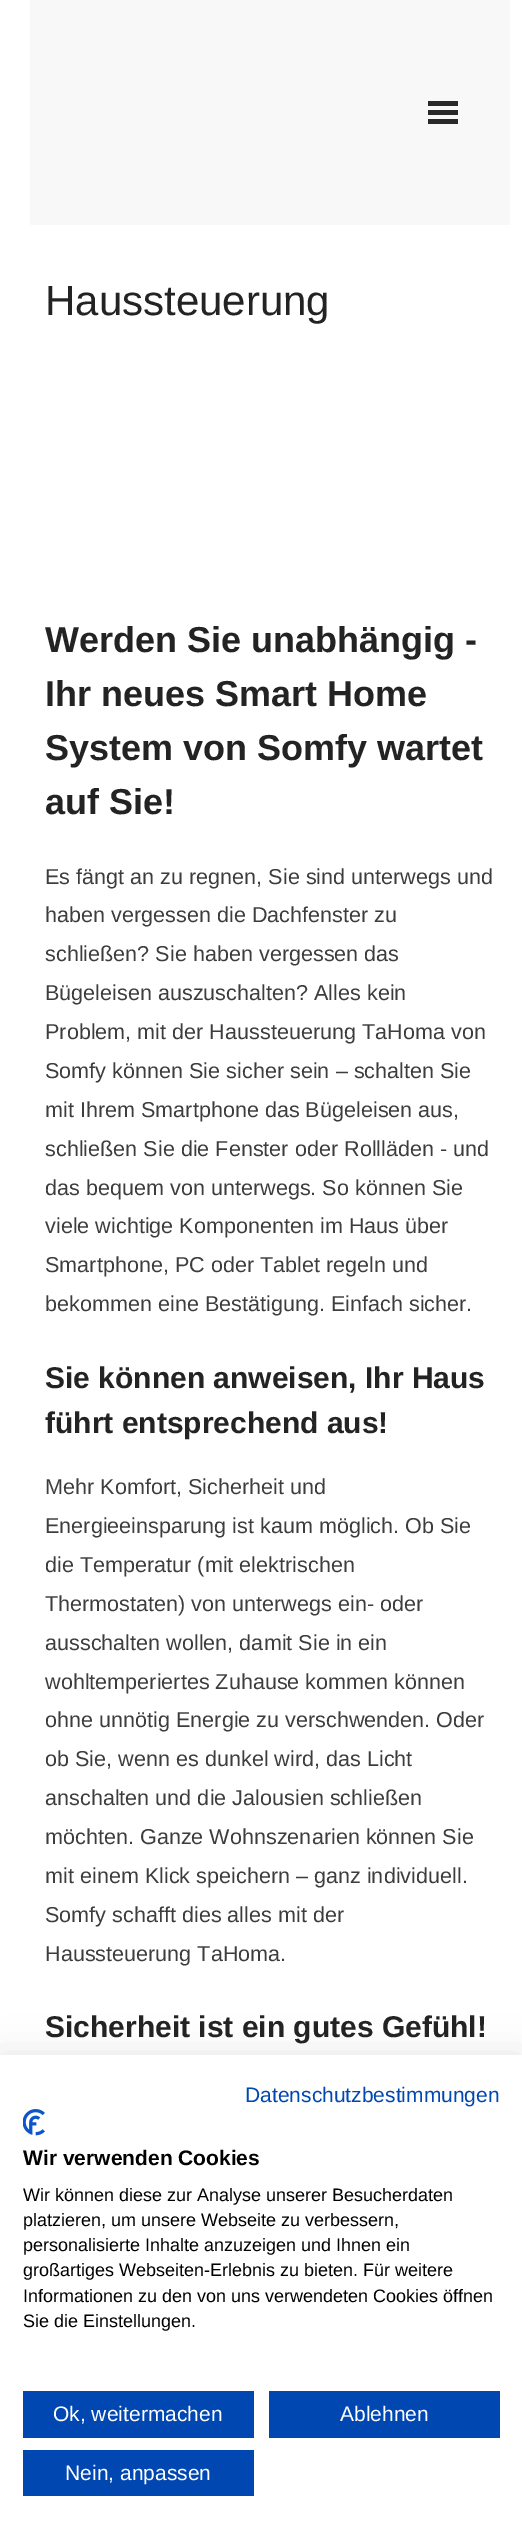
%!PS
<< /PageSize [522 2536] /PageUsesTransparency true >> setpagedevice
/C { dup -16 bitshift 255 div exch dup -8 bitshift 255 and 255 div exch 255 and 255 div setrgbcolor } def
/F { [ exch dup neg 0 0 3 -1 roll 0 0 ] selectfont } def
/T { moveto show } def
/R { rectfill } def
/A { dup .setfillconstantalpha .setstrokeconstantalpha } def
/Q { 5 dict begin { /r /h /w /y /x } { exch def } forall
  x r add y moveto x w add y 2 copy h add r arct x w add y h add x 1 index r arct
  x y h add x y r arct x y 2 copy exch w add exch r arct closepath end } def
/S { 12 dict begin { /a /b /q /h /w /y /x } { exch def } forall gsave /was 0 def
  9 -2 -9 { dup b mul 4 div /e exch def 1 sub .425 mul 2.718 exch exp 1 add a .99 .min exch div /now exch def
    1 1 now sub 1 was sub div sub A /was now def
    w h .min e 2 mul add 0 gt { x e sub y e sub w e 2 mul add h e 2 mul add
      q e add b .6 mul add w h .min 2 div e add .min 0 .max Q fill } if } for grestore end } def
/I { 5 dict begin { /h /w /y /x /name } { exch def } forall
  gsave x y translate w h scale
  w h 8 [w 0 0 h 0 0] name (r) file false 3 colorimage grestore end } def
0 .pushpdf14devicefilter
0 2536 translate 1 -1 scale
4 setmiterlimit
16#FFFFFF C
0 0 522 2536 R
16#F8F8F8 C
30 0 480 225 R
16#292929 C
428 101 30 5 R
428 110 30 5 R
428 119 30 5 R
/LiberationSans-Regular 42 F
16#232323 C
(Haussteuerung) 45 315 T
/LiberationSans-Bold 36 F
(Werden Sie unabhängig -) 45 652 T
(Ihr neues Smart Home) 45 706 T
(System von Somfy wartet) 45 760 T
(auf Sie!) 45 814 T
/LiberationSans-Regular 21.6 F
16#3D3D3D C
(Es fängt an zu regnen, Sie sind unterwegs und) 45 884 T
(haben vergessen die Dachfenster zu) 45 922 T
(schließen? Sie haben vergessen das) 45 961 T
(Bügeleisen auszuschalten? Alles kein) 45 1000 T
(Problem, mit der Haussteuerung TaHoma von) 45 1039 T
(Somfy können Sie sicher sein – schalten Sie) 45 1078 T
(mit Ihrem Smartphone das Bügeleisen aus,) 45 1117 T
(schließen Sie die Fenster oder Rollläden - und) 45 1156 T
(das bequem von unterwegs. So können Sie) 45 1195 T
(viele wichtige Komponenten im Haus über) 45 1233 T
(Smartphone, PC oder Tablet regeln und) 45 1272 T
(bekommen eine Bestätigung. Einfach sicher.) 45 1311 T
/LiberationSans-Bold 30 F
16#232323 C
(Sie können anweisen, Ihr Haus) 45 1388 T
(führt entsprechend aus!) 45 1433 T
/LiberationSans-Regular 21.6 F
16#3D3D3D C
(Mehr Komfort, Sicherheit und) 45 1494 T
(Energieeinsparung ist kaum möglich. Ob Sie) 45 1533 T
(die Temperatur \(mit elektrischen) 45 1572 T
(Thermostaten\) von unterwegs ein- oder) 45 1611 T
(ausschalten wollen, damit Sie in ein) 45 1650 T
(wohltemperiertes Zuhause kommen können) 45 1689 T
(ohne unnötig Energie zu verschwenden. Oder) 45 1727 T
(ob Sie, wenn es dunkel wird, das Licht) 45 1766 T
(anschalten und die Jalousien schließen) 45 1805 T
(möchten. Ganze Wohnszenarien können Sie) 45 1844 T
(mit einem Klick speichern – ganz individuell.) 45 1883 T
(Somfy schafft dies alles mit der) 45 1922 T
(Haussteuerung TaHoma.) 45 1961 T
/LiberationSans-Bold 30 F
16#232323 C
(Sicherheit ist ein gutes Gefühl!) 45 2037 T
16#000000 C
0 2055 522 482 0 18 .1 S
16#FFFFFF C
0 2055 522 481 R
/LiberationSans-Regular 21 F
16#0047B2 C
(Datenschutzbestimmungen) 245 2102 T
(1.rgb) 23 2109 22 27 I
/LiberationSans-Bold 21 F
16#000000 C
(Wir verwenden Cookies) 23 2165 T
/LiberationSans-Regular 18 F
(Wir können diese zur Analyse unserer Besucherdaten) 23 2201 T
(platzieren, um unsere Webseite zu verbessern,) 23 2226 T
(personalisierte Inhalte anzuzeigen und Ihnen ein) 23 2251 T
(großartiges Webseiten-Erlebnis zu bieten. Für weitere) 23 2276 T
(Informationen zu den von uns verwendeten Cookies öffnen) 23 2302 T
(Sie die Einstellungen.) 23 2327 T
16#0047B2 C
23 2391 231 47 R
/LiberationSans-Regular 21 F
16#FFFFFF C
(Ok, weitermachen) 53 2421 T
16#0047B2 C
269 2391 231 47 R
16#FFFFFF C
(Ablehnen) 340 2421 T
16#0047B2 C
23 2450 231 46 R
16#FFFFFF C
(Nein, anpassen) 65 2480 T
.poppdf14devicefilter showpage
